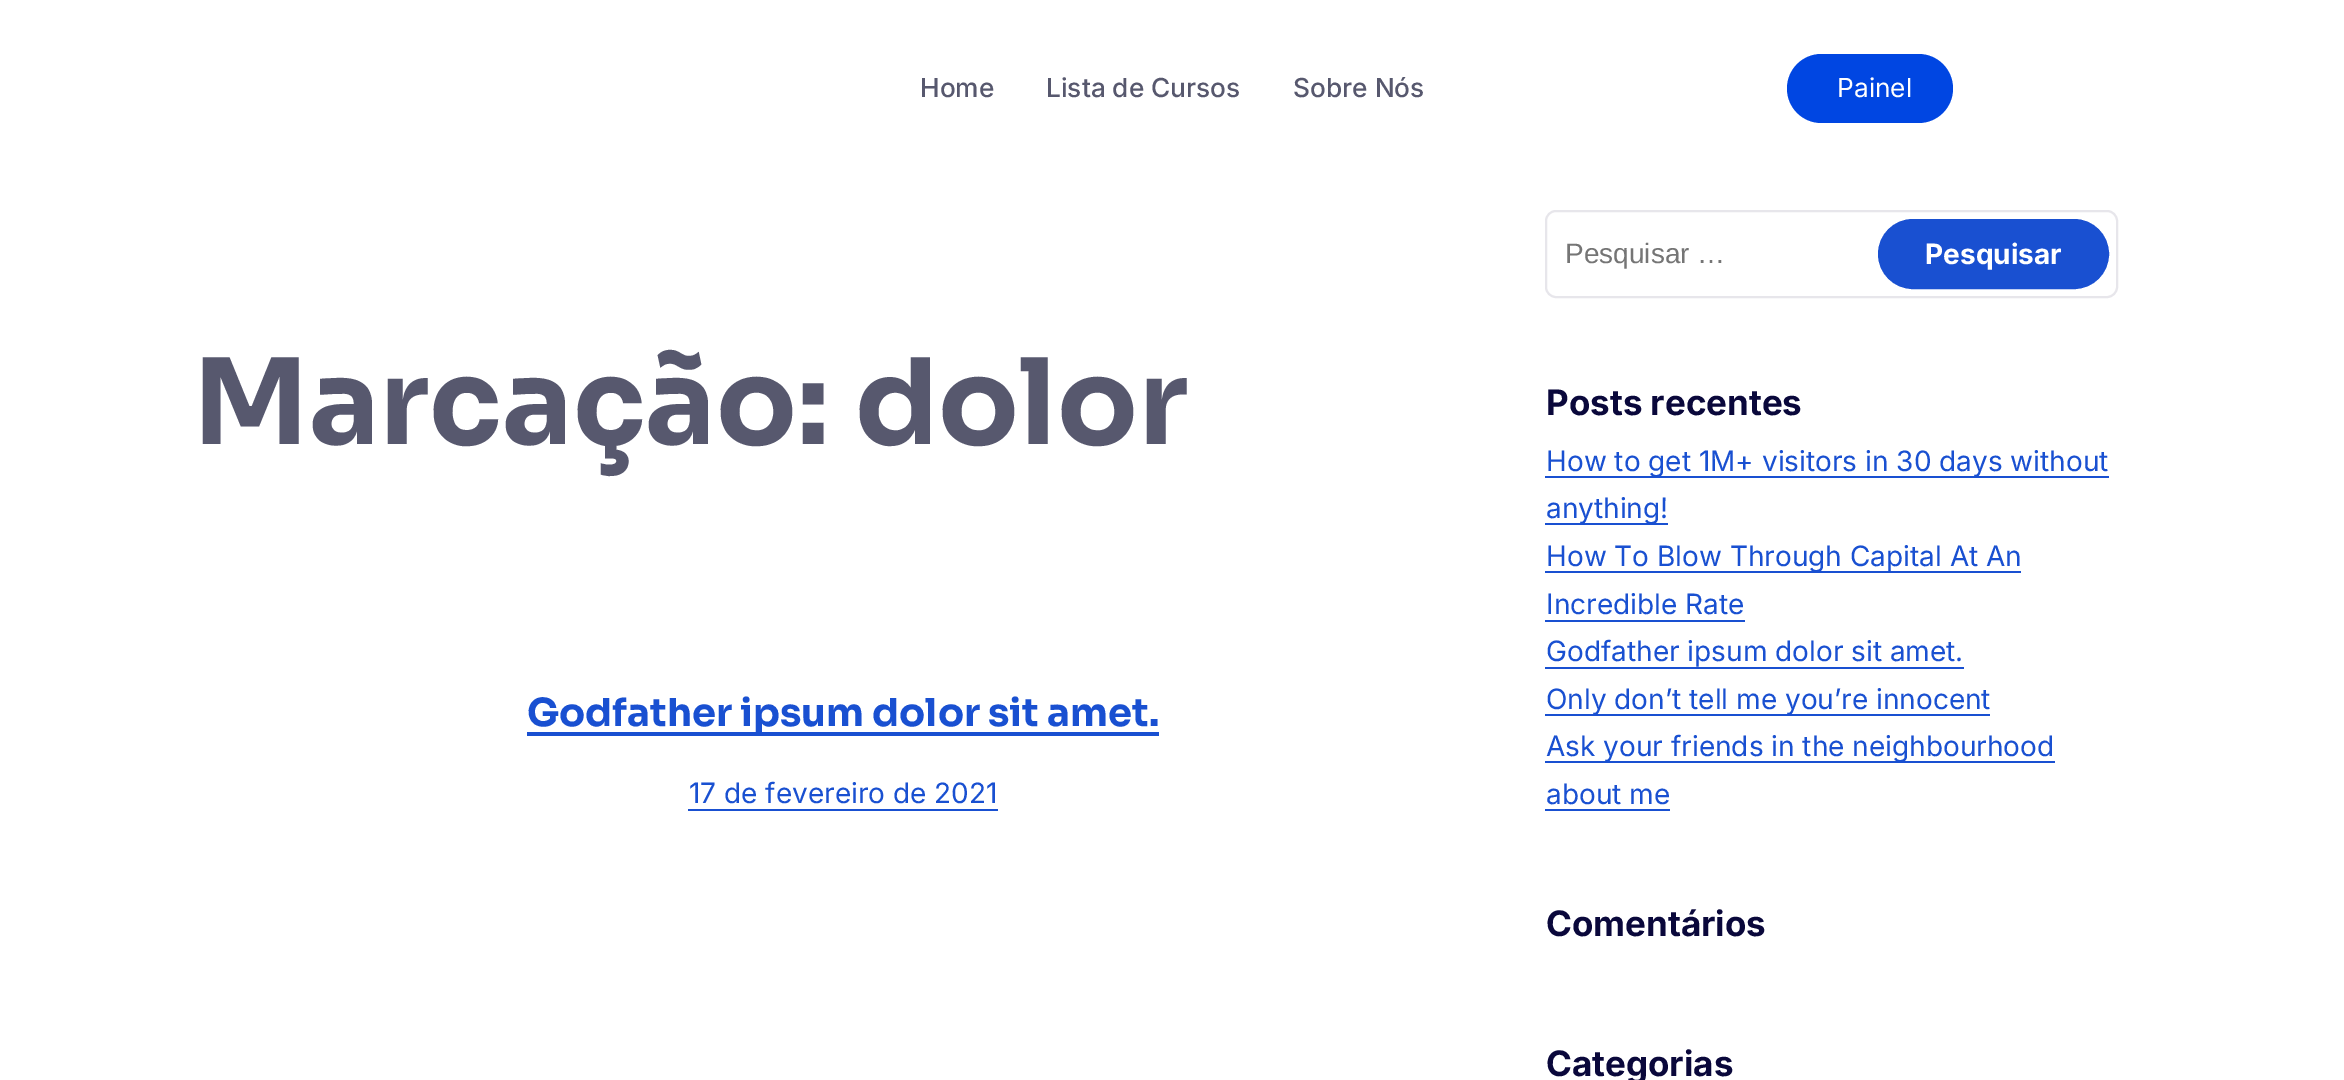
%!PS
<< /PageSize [2344 1080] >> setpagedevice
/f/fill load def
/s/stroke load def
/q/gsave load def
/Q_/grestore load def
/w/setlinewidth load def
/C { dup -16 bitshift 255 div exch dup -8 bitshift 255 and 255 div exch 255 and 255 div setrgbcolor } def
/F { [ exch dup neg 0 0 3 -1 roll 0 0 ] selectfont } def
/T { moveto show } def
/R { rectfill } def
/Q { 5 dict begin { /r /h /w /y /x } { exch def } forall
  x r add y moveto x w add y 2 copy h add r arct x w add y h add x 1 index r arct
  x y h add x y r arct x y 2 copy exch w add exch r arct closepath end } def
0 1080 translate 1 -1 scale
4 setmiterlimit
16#FFFFFF C
0 0 2344 1080 R
/Inter-Medium 26.25 F
16#57586E C
(Home) 920 97 T
(Lista de Cursos) 1046 97 T
(Sobre Nós) 1293 97 T
16#0046E2 C
1787 54 166 69 34.5 Q f
/Inter-Regular 26.25 F
16#FFFFFF C
(Painel) 1837 97 T
/Sora-Bold 119 F
16#57586E C
(Marcação: dolor) 193 444 T
16#1950D1 C
527 732 632 4 R
/Sora-Bold 38.5 F
(Godfather ipsum dolor sit amet.) 527 726 T
/Inter-Regular 28 F
(17 de fevereiro de 2021) 689 803 T
688 809 310 2 R
16#E7E6EB C
2 w
1546 211 571 86 10 Q s
/LiberationSans-Regular 28 F
16#757575 C
(Pesquisar …) 1565 263 T
16#1950D1 C
1879 220 229 68 34 Q q f Q_
s
/Inter-Bold 28 F
16#FFFFFF C
(Pesquisar) 1925 264 T
/Inter-Bold 35 F
16#0A083B C
(Posts recentes) 1546 415 T
16#1950D1 C
1545 476 564 2 R
/Inter-Regular 28 F
(How to get 1M+ visitors in 30 days without) 1546 471 T
1545 523 123 2 R
(anything!) 1546 518 T
1545 571 476 2 R
(How To Blow Through Capital At An) 1546 566 T
(Incredible Rate) 1546 614 T
1545 620 200 2 R
(Godfather ipsum dolor sit amet.) 1546 661 T
1545 667 419 2 R
1545 714 445 2 R
(Only don’t tell me you’re innocent) 1546 709 T
1545 761 510 2 R
(Ask your friends in the neighbourhood) 1546 756 T
(about me) 1546 804 T
1545 809 125 2 R
/Inter-Bold 35 F
16#0A083B C
(Comentários) 1546 936 T
(Categorias) 1546 1076 T
showpage
